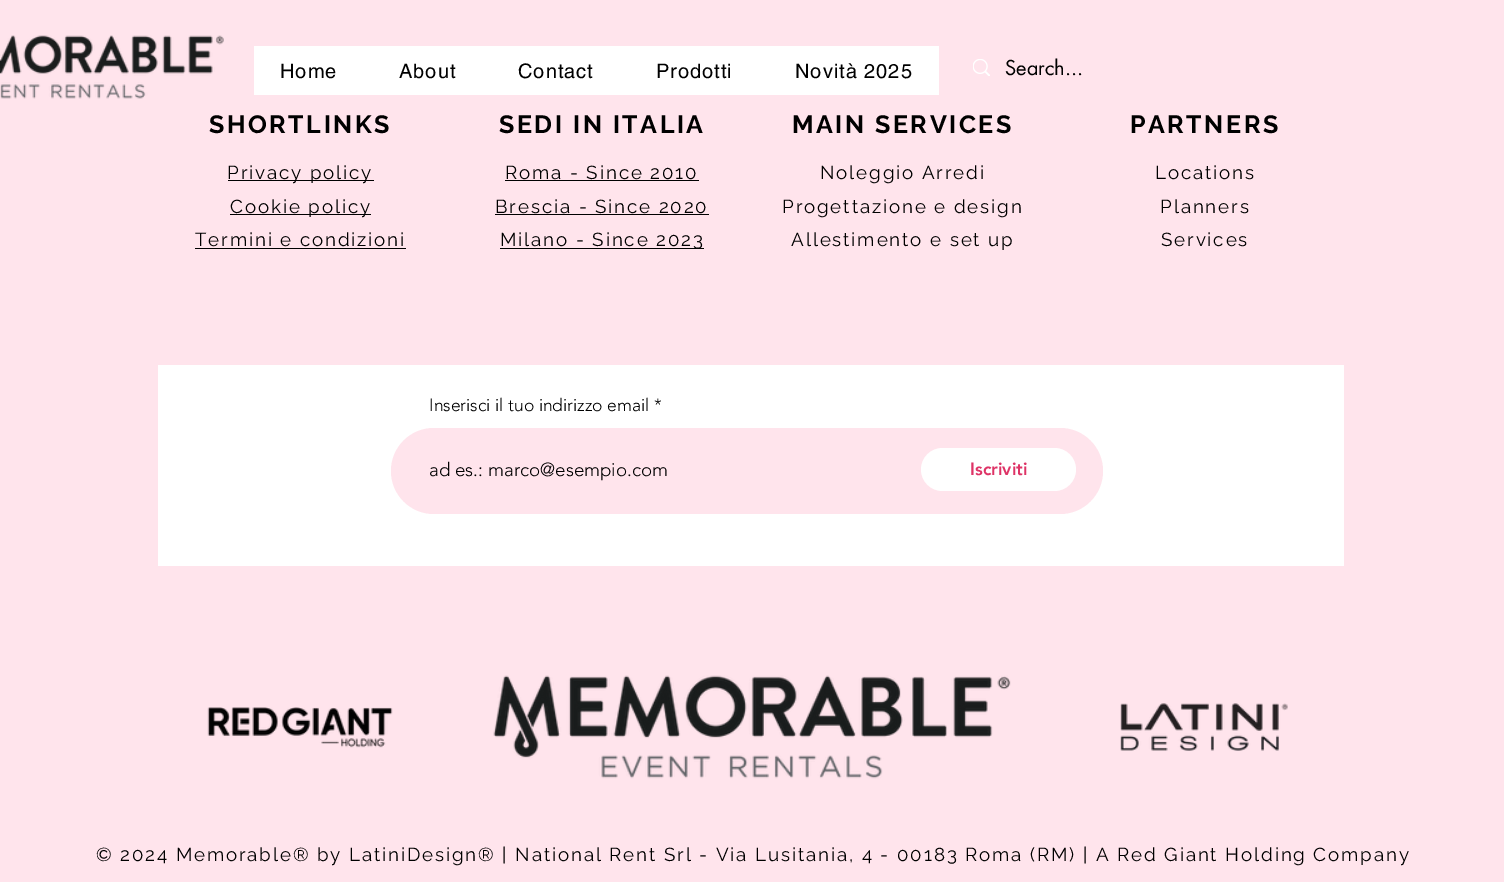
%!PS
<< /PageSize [1504 882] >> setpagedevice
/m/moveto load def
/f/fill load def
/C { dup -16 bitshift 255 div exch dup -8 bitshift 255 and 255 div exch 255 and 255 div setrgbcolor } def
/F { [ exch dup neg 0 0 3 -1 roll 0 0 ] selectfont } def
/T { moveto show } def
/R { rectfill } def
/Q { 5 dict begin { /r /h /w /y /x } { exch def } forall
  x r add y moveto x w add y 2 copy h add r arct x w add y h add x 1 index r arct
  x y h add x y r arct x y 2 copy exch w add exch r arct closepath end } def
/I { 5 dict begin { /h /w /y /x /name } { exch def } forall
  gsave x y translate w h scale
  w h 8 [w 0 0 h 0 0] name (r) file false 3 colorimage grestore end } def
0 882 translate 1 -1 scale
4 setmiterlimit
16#FFE4EC C
0 0 1504 882 R
(1.rgb) 0 35 224 64 I
16#FFFFFF C
254 46 685 49 R
/helvetica-Regular 20 F
16#000000 C
280 78 m 1 0 (Home) ashow
399 78 m 1 0 (About) ashow
518 78 m 1 0 (Contact) ashow
656 78 m 1 0 (Prodotti) ashow
795 78 m 1 0 (Novità 2025) ashow
(2.rgb) 973 59 17 17 I
/futura-Regular 20 F
(Search...) 1005 75 T
/Raleway-Bold 25 F
209 133 m 2.5 0 (SHORTLINKS) ashow
228 180 146 1 R
/Raleway-Regular 18.75 F
227 179 m 1.88 0 (Privacy policy) ashow
230 214 141 1 R
230 213 m 1.88 0 (Cookie policy) ashow
195 246 m 1.88 0 (Termini e condizioni) ashow
195 248 211 1 R
/Raleway-Bold 25 F
499 133 m 2.5 0 (SEDI IN ITALIA) ashow
/Raleway-Regular 18.75 F
505 179 m 1.88 0 (Roma - Since 2010) ashow
505 180 194 1 R
495 213 m 1.88 0 (Brescia - Since 2020) ashow
495 214 214 1 R
500 248 204 1 R
500 246 m 1.88 0 (Milano - Since 2023) ashow
/Raleway-Bold 25 F
792 133 m 2.5 0 (MAIN SERVICES) ashow
/Raleway-Regular 18.75 F
820 179 m 1.88 0 (Noleggio Arredi) ashow
782 213 m 1.88 0 (Progettazione e design) ashow
791 246 m 1.88 0 (Allestimento e set up) ashow
/Raleway-Bold 25 F
1130 133 m 2.5 0 (PARTNERS) ashow
/Raleway-Regular 18.75 F
1155 179 m 1.88 0 (Locations) ashow
1160 213 m 1.88 0 (Planners) ashow
1161 246 m 1.88 0 (Services) ashow
16#FFFFFF C
158 365 1186 201 R
/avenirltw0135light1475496-Light 17.5 F
16#000000 C
(Inserisci il tuo indirizzo email *) 429 411 T
16#FFE4EC C
391 428 712 86 43 Q f
/avenirltw0135light1475496-Light 18.75 F
16#000000 C
(ad es.: marco@esempio.com) 429 476 T
16#FFFFFF C
921 448 155 43 21.5 Q f
/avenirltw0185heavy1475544-Black 17.5 F
16#DE3366 C
(Iscriviti) 970 475 T
(3.rgb) 207 707 186 41 I
(4.rgb) 493 675 518 104 I
(5.rgb) 1120 703 168 48 I
/Raleway-Regular 18.75 F
16#000000 C
96 861 m 1.88 0 (© 2024 Memorable® by LatiniDesign® | National Rent Srl - Via Lusitania, 4 - 00183 Roma \(RM\) | A Red Giant Holding Company) ashow
showpage
